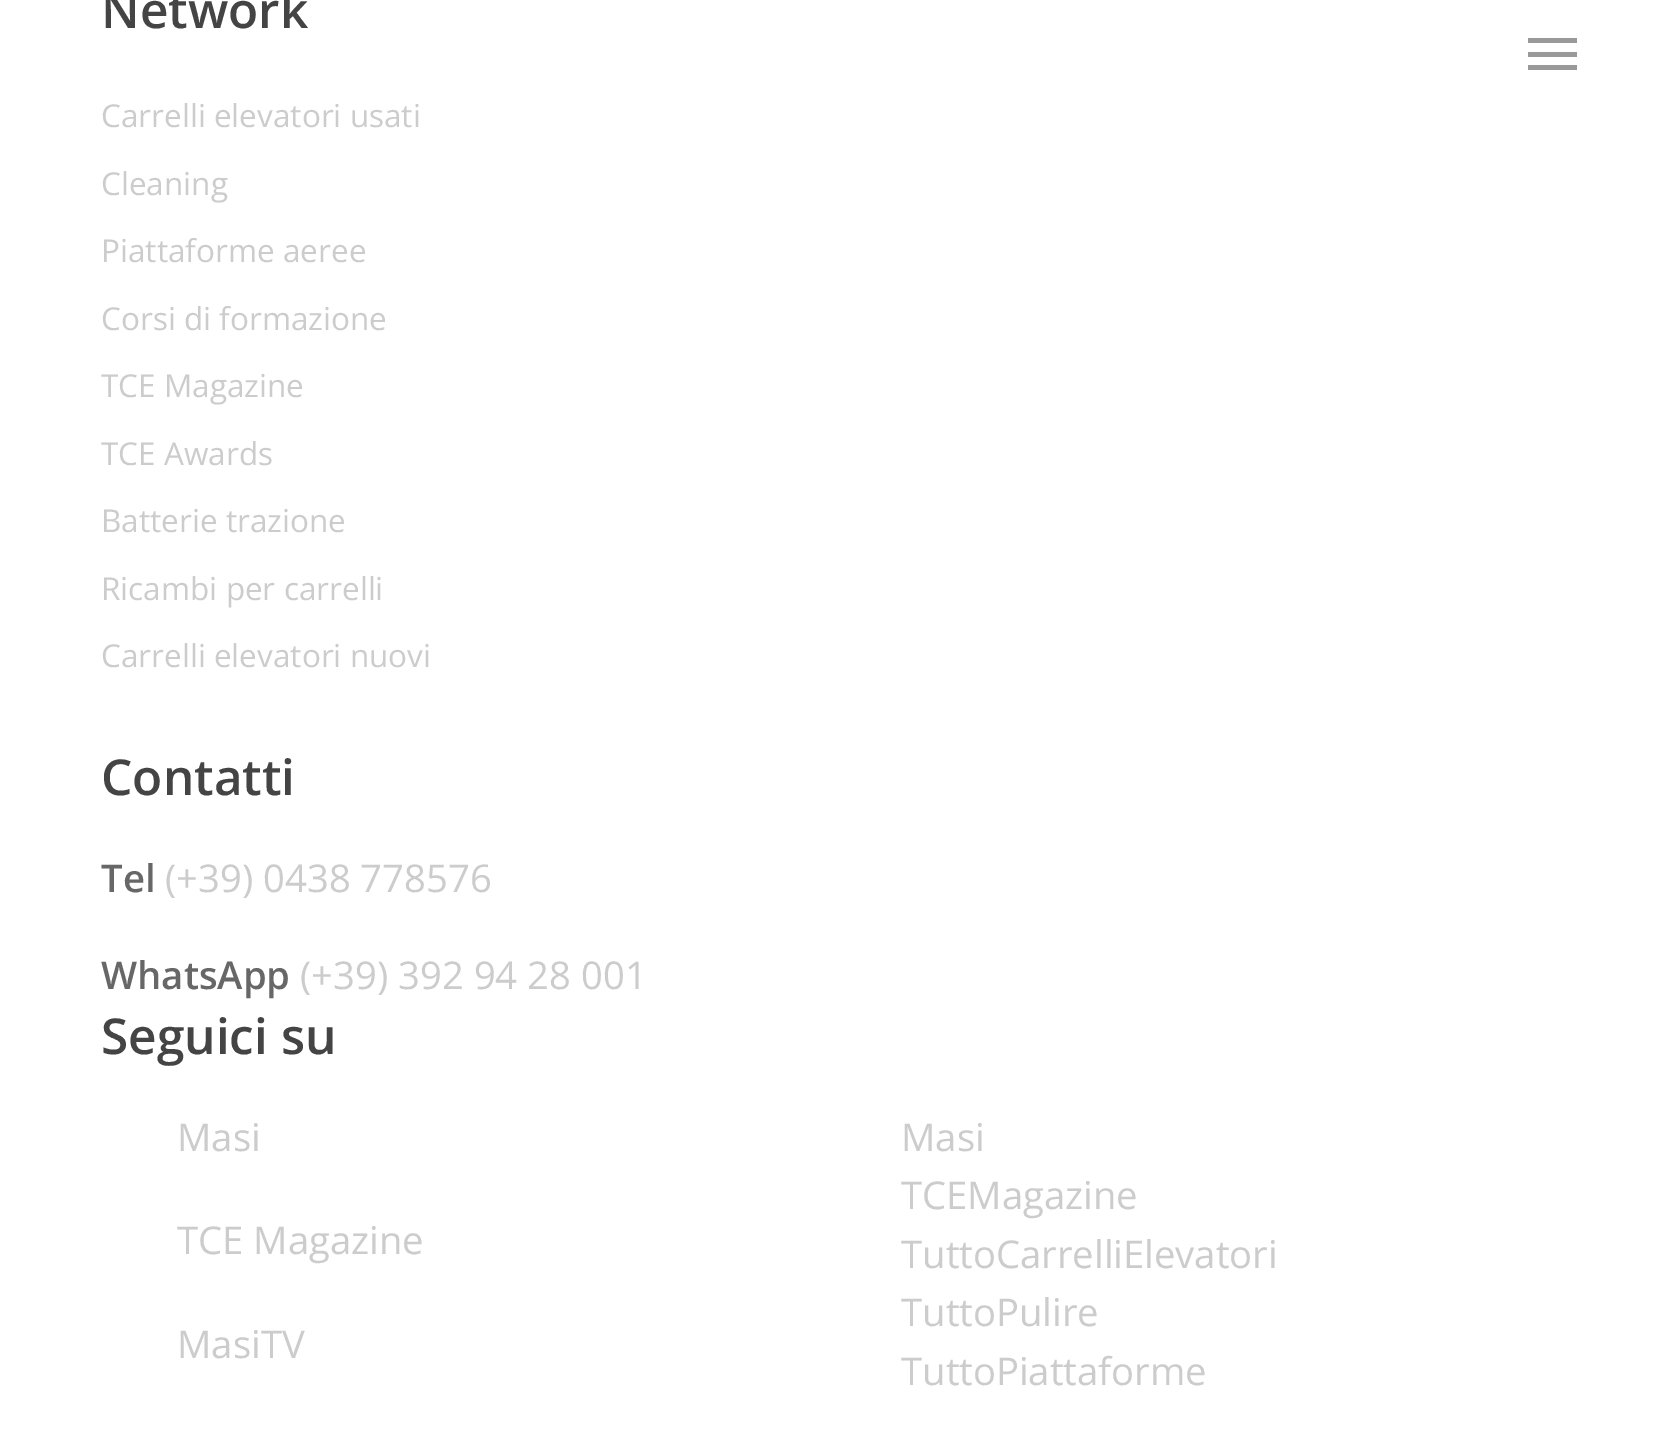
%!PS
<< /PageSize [1679 1450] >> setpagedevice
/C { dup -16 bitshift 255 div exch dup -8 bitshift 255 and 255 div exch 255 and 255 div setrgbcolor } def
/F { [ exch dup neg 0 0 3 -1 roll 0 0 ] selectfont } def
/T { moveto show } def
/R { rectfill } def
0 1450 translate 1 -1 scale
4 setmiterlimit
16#FFFFFF C
0 0 1679 1450 R
/OpenSans-SemiBold 49.5 F
16#444444 C
(Network) 101 28 T
/OpenSans-Regular 31.5 F
16#CCCCCC C
(Carrelli elevatori usati) 101 127 T
(Cleaning) 101 195 T
(Piattaforme aeree) 101 262 T
(Corsi di formazione) 101 330 T
(TCE Magazine) 101 397 T
(TCE Awards) 101 465 T
(Batterie trazione) 101 532 T
(Ricambi per carrelli) 101 600 T
(Carrelli elevatori nuovi) 101 667 T
/OpenSans-SemiBold 49.5 F
16#444444 C
(Contatti) 101 795 T
/OpenSans-SemiBold 38.25 F
16#676767 C
(Tel) 101 892 T
/OpenSans-Regular 38.25 F
16#CCCCCC C
(\(+39\) 0438 778576) 165 892 T
/OpenSans-SemiBold 38.25 F
16#676767 C
(WhatsApp) 101 989 T
/OpenSans-Regular 38.25 F
16#CCCCCC C
(\(+39\) 392 94 28 001) 300 989 T
/OpenSans-SemiBold 49.5 F
16#444444 C
(Seguici su) 101 1054 T
/OpenSans-Regular 38.25 F
16#CCCCCC C
(Masi) 177 1151 T
(TCE Magazine) 177 1254 T
(MasiTV) 177 1358 T
(Masi) 901 1151 T
(TCEMagazine) 901 1209 T
(TuttoCarrelliElevatori) 901 1268 T
(TuttoPulire) 901 1326 T
(TuttoPiattaforme) 901 1385 T
16#999999 C
1528 38 49 5 R
1528 65 49 5 R
1528 52 49 5 R
showpage
